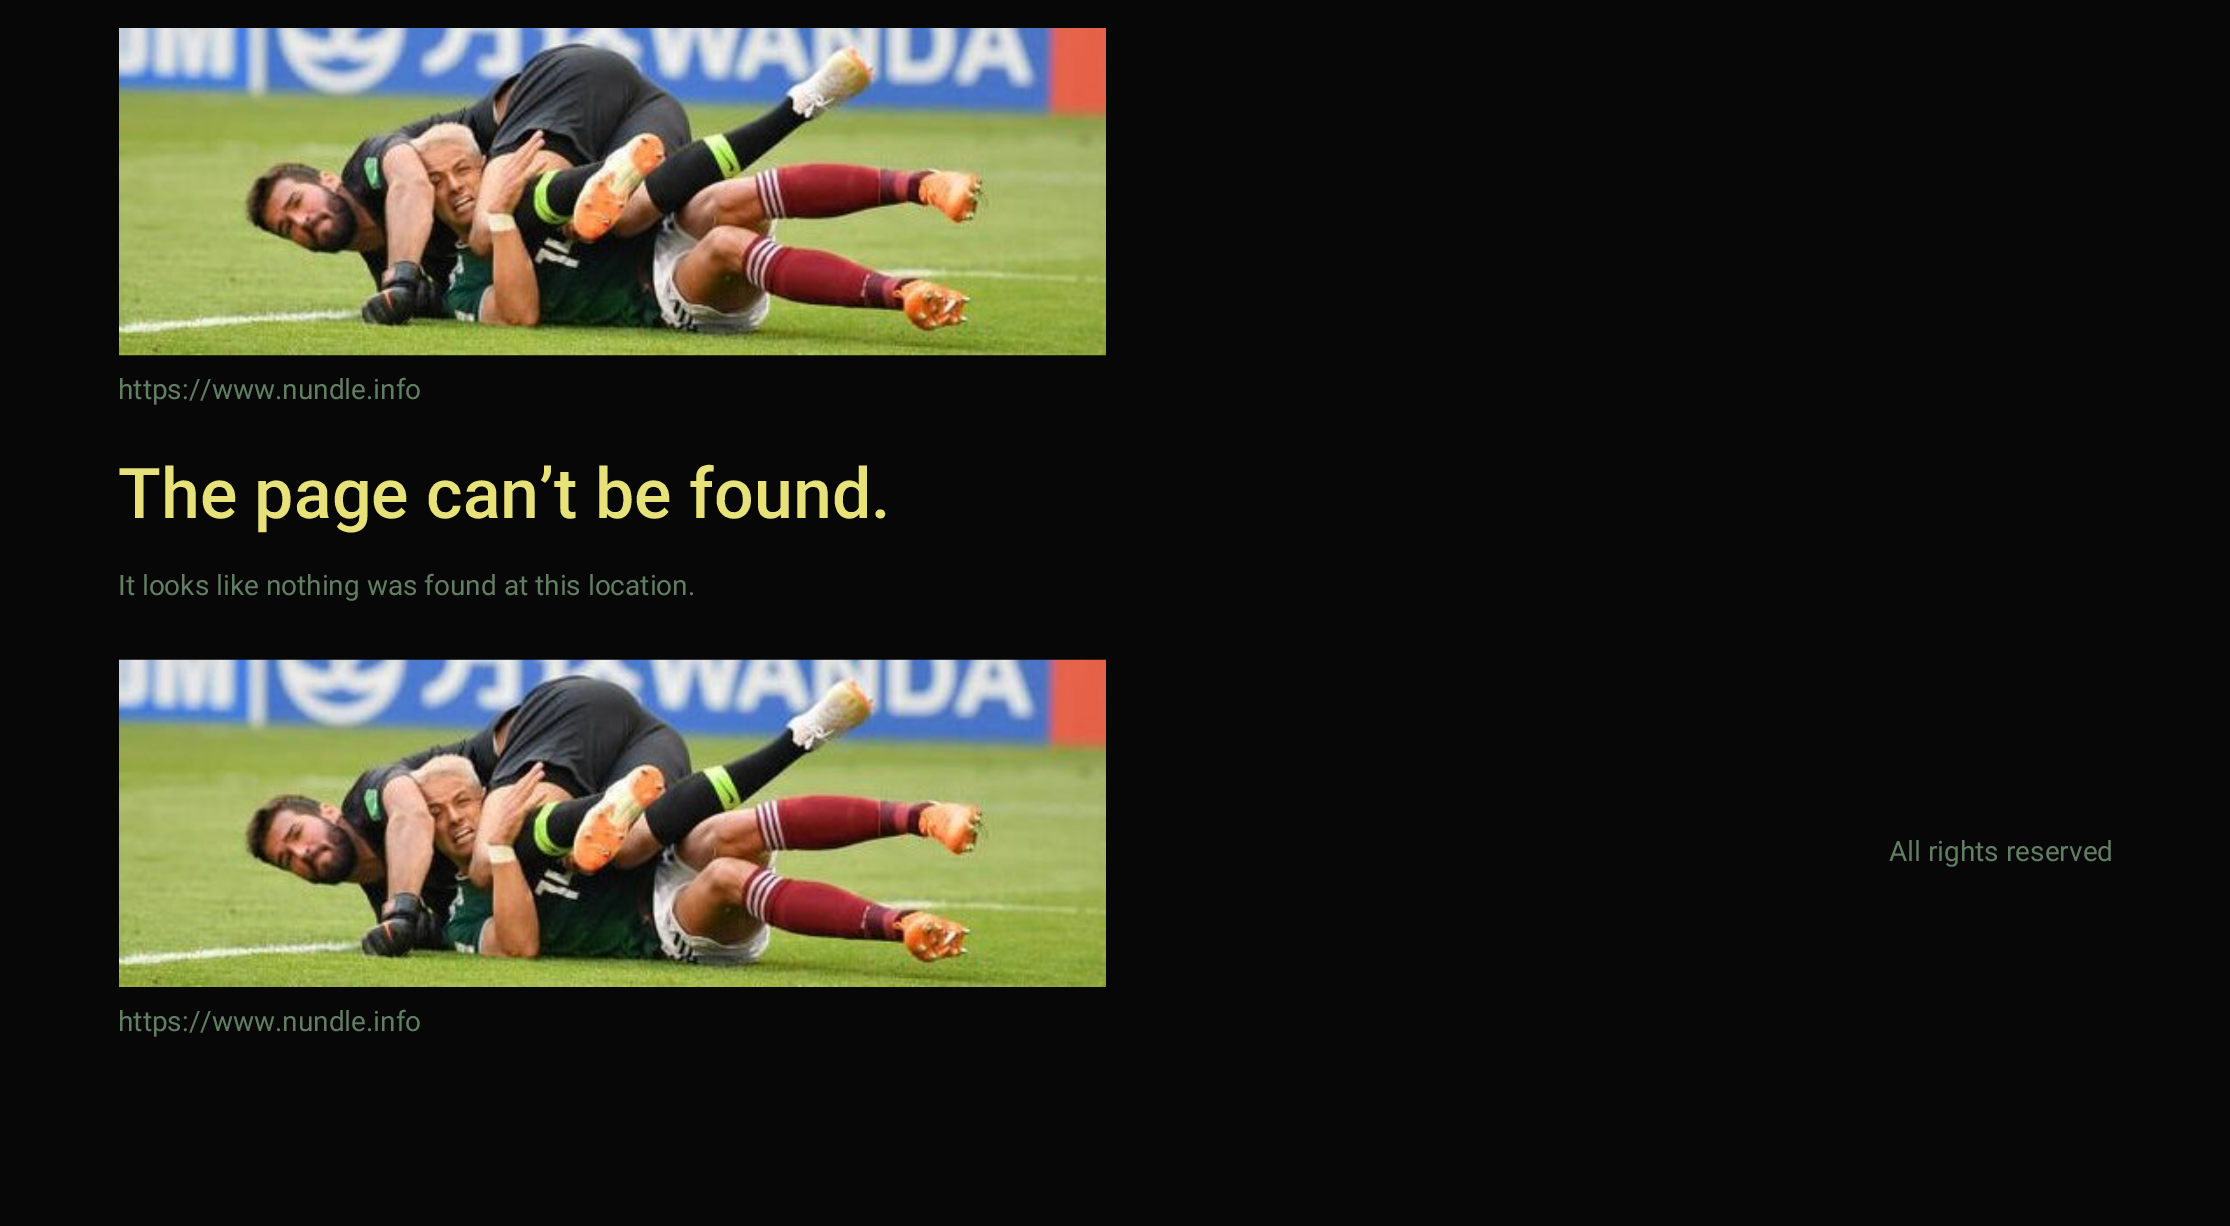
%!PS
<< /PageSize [2230 1226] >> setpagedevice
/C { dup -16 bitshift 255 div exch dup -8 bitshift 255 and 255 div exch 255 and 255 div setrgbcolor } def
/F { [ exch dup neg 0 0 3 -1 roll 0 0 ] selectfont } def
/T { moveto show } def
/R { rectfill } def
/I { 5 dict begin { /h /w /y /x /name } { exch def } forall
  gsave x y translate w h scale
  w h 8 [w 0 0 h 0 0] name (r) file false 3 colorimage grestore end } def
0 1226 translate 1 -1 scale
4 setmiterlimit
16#070707 C
0 0 2230 1226 R
(1.rgb) 119 28 987 328 I
/Roboto-Regular 28 F
16#617E63 C
(https://www.nundle.info) 118 399 T
/Roboto-Medium 70 F
16#E6E279 C
(The page can’t be found.) 118 518 T
/Roboto-Regular 28 F
16#617E63 C
(It looks like nothing was found at this location.) 118 595 T
(All rights reserved) 1889 861 T
(2.rgb) 119 659 987 328 I
(https://www.nundle.info) 118 1031 T
showpage
